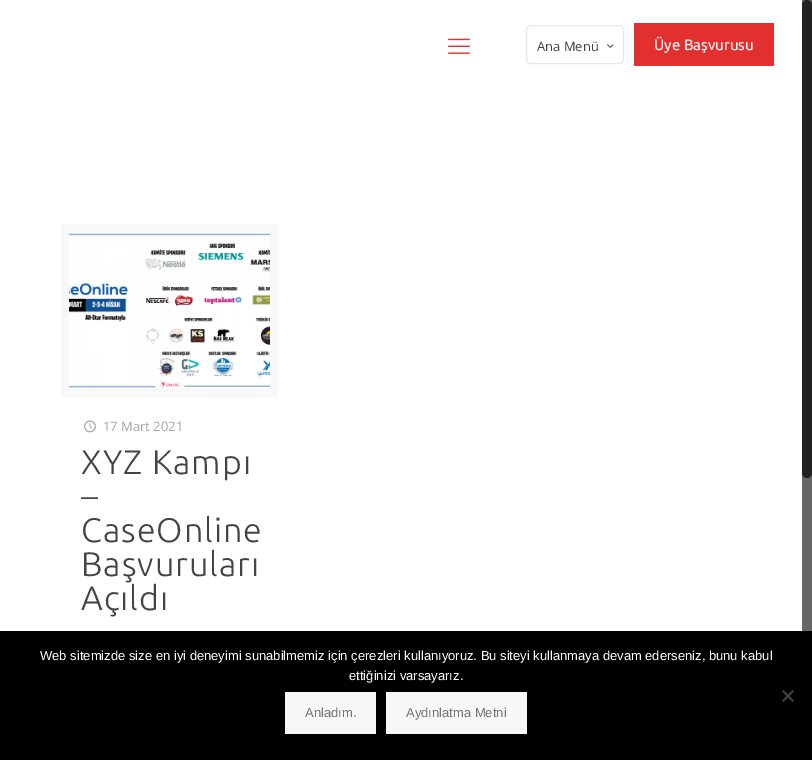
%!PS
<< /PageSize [812 760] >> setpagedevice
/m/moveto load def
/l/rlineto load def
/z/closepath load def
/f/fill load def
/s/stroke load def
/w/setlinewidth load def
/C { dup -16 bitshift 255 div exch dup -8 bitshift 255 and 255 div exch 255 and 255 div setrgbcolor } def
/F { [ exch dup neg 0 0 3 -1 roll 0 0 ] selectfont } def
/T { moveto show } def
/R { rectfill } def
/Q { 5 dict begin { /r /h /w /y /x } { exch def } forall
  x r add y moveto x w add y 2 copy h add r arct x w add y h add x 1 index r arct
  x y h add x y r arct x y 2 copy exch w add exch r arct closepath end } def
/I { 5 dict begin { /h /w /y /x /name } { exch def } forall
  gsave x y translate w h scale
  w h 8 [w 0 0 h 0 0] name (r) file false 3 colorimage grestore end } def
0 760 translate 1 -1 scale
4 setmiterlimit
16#FFFFFF C
0 0 812 760 R
(1.rgb) 448 38 22 16 I
16#E6E6E6 C
526.5 25.5 97 38 4.5 Q s
/OpenSans-Regular 13 F
16#444444 C
(Ana Menü) 537 51 T
(2.rgb) 607 44 7 4 I
16#E23030 C
634 23 140 43 R
/Ubuntu-Regular 15 F
16#FFFFFF C
(Üye Başvurusu) 654 50 T
16#F8F8F8 C
8 w
65 228 209 165 rectstroke
(3.rgb) 69 233 201 155 I
(4.rgb) 84 420 12 13 I
/OpenSans-Regular 13 F
16#A8A8A8 C
(17 Mart 2021) 103 431 T
/Ubuntu-Light 34 F
16#444444 C
81 474 m 1 0 (XYZ Kampı) ashow
81 508 m 1 0 (–) ashow
81 542 m 1 0 (CaseOnline) ashow
81 576 m 1 0 (Başvuruları) ashow
81 610 m 1 0 (Açıldı) ashow
16#666666 C
802 0 10 631 R
16#222222 C
802 0 10 478 5 Q f
16#000000 C
0 631 812 129 R
/LiberationSans-Regular 13 F
16#FFFFFF C
(Web sitemizde size en iyi deneyimi sunabilmemiz için çerezleri kullanıyoruz. Bu siteyi kullanmaya devam ederseniz, bunu kabul) 40 660 T
(ettiğinizi varsayarız.) 349 680 T
16#404040 C
792.5 690 m 1.5 1.5 l -10.5 10.5 l -1.5 -1.5 l z f
782 691.5 m 1.5 -1.5 l 10.5 10.5 l -1.5 1.5 l z f
16#F7F7F7 C
285 692 91 42 R
16#747474 C
(Anladım.) 305 717 T
16#F7F7F7 C
386 692 141 42 R
16#747474 C
(Aydınlatma Metni) 406 717 T
showpage
